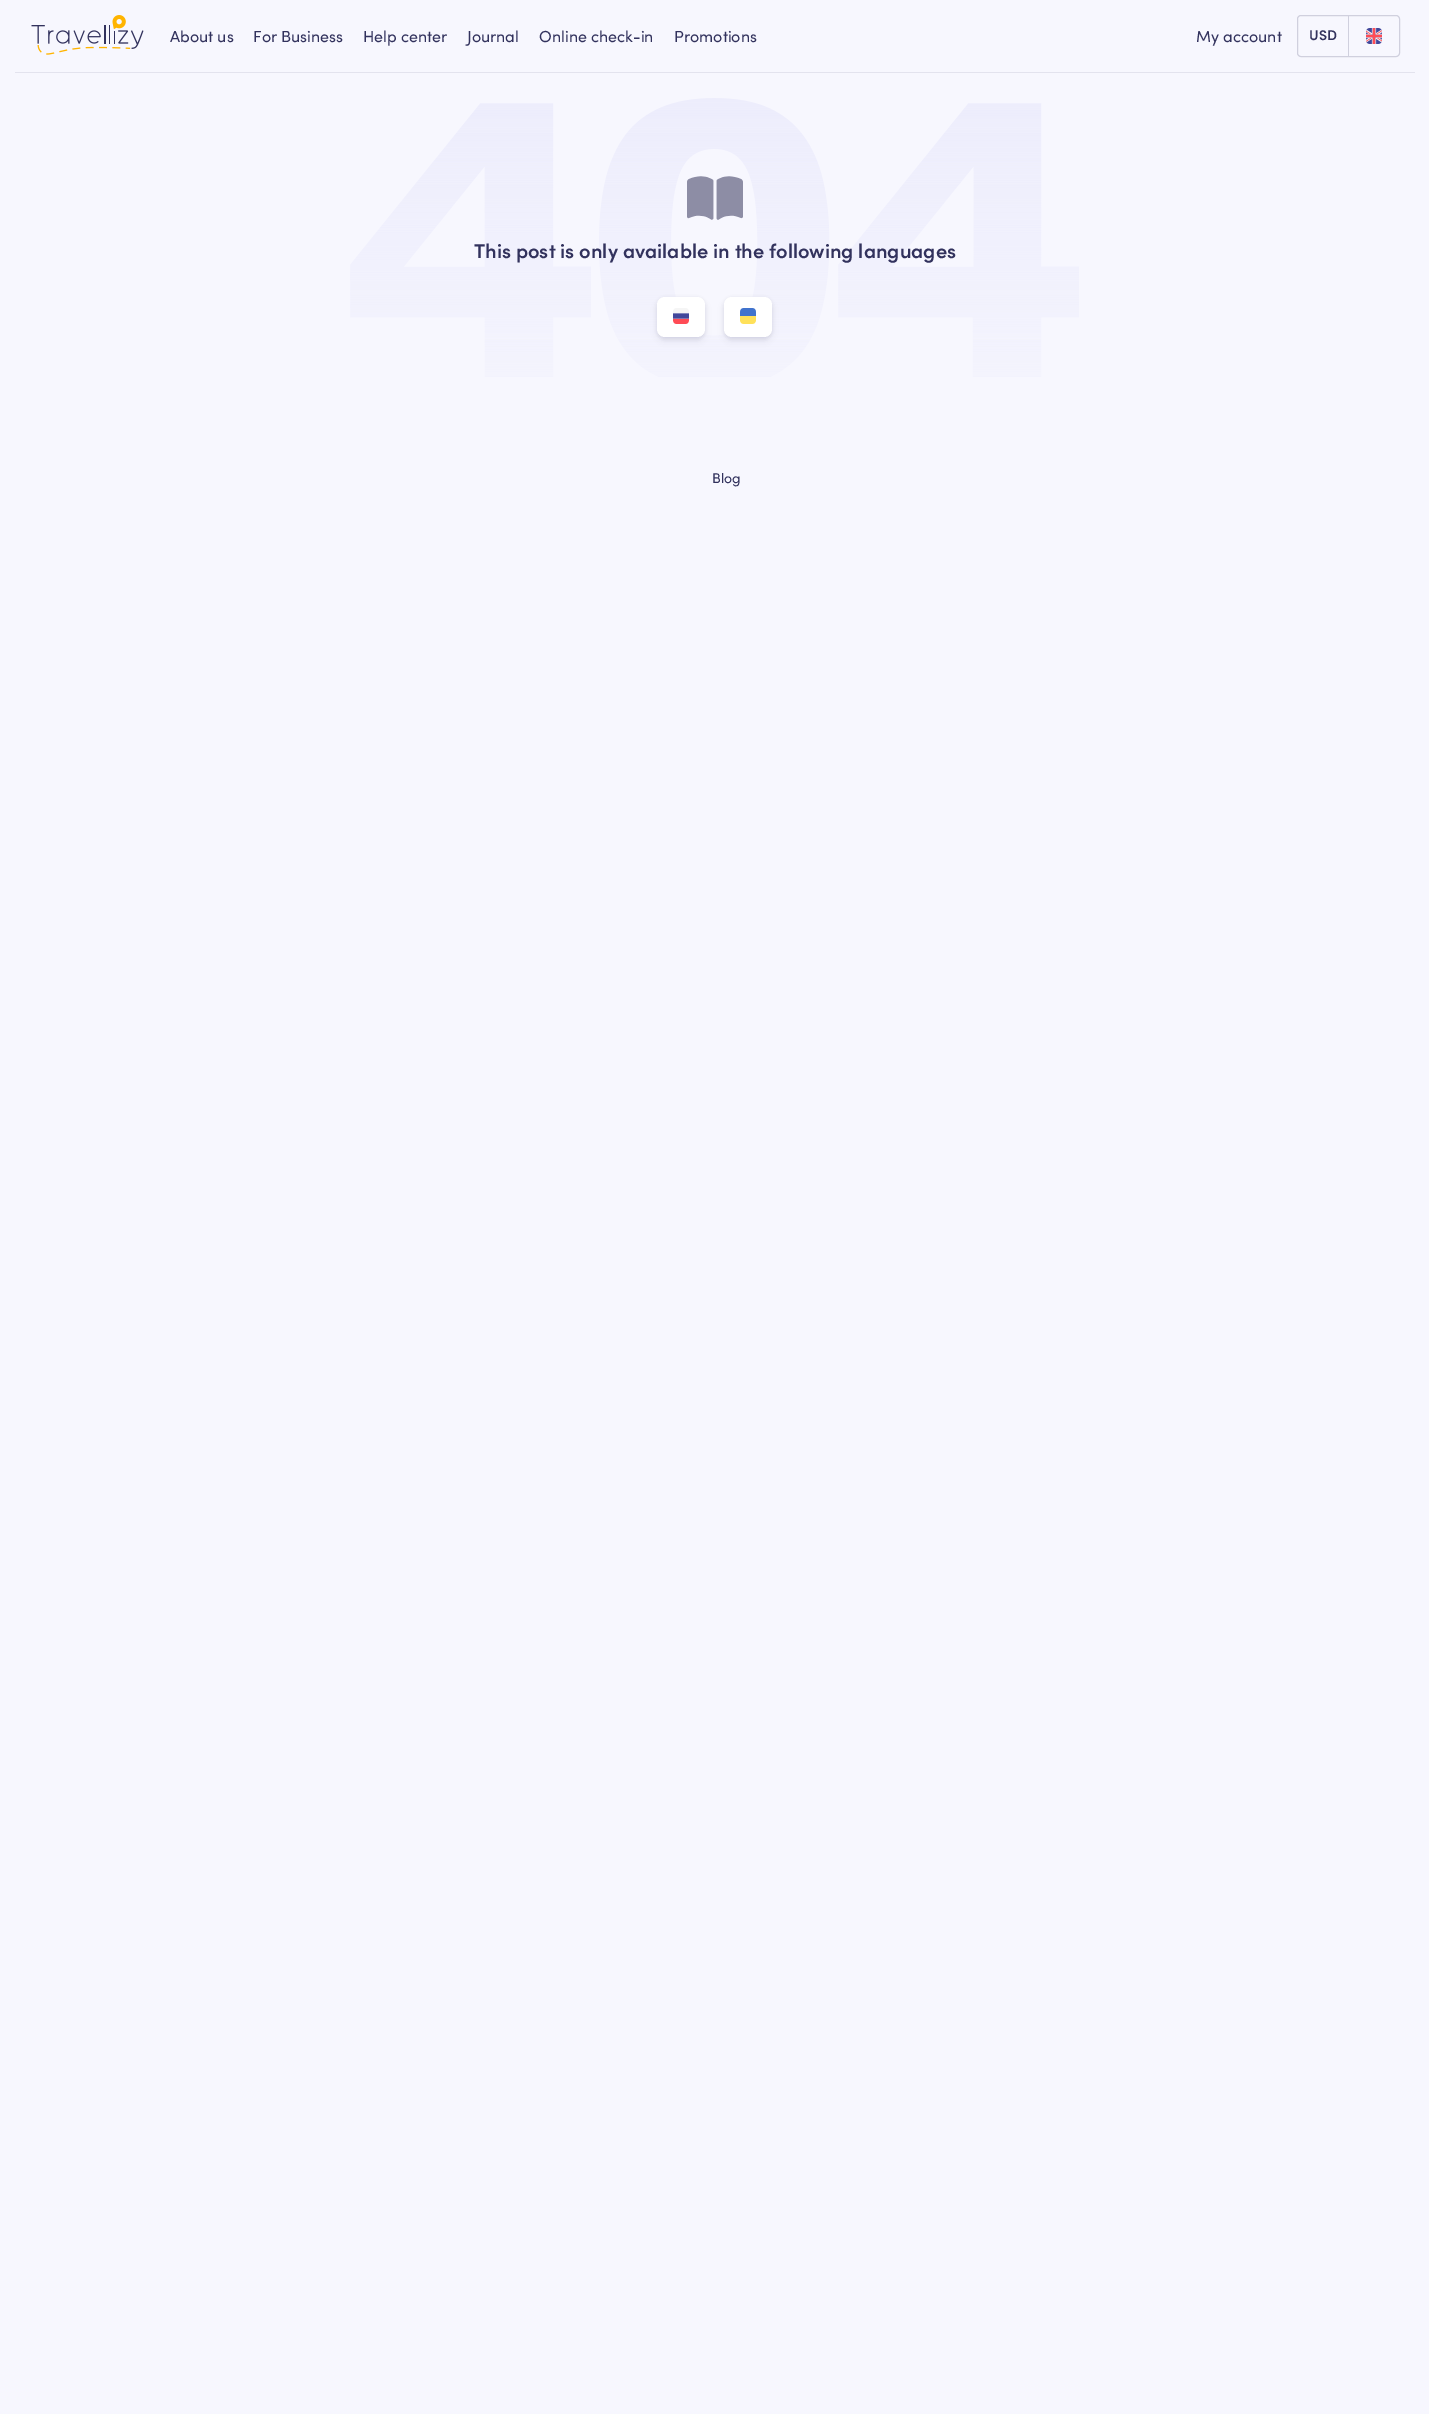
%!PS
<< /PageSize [1429 2414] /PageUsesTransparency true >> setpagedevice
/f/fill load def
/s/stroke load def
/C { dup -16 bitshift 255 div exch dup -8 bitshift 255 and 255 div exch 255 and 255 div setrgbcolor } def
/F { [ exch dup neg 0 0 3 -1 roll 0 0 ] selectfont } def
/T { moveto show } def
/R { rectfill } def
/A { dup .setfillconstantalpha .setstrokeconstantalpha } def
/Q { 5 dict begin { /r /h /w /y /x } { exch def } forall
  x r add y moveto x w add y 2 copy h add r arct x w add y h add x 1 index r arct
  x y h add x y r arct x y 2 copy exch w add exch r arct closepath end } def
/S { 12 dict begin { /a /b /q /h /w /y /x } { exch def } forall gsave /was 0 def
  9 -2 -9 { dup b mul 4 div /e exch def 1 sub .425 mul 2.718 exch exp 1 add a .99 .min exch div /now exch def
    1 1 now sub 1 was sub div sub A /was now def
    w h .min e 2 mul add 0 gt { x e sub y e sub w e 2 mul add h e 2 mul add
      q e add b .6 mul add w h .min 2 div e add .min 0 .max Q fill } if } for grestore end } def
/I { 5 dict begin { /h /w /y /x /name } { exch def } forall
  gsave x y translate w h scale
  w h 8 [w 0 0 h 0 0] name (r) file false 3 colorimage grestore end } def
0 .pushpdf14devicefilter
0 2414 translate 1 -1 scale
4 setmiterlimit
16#F7F7FE C
0 0 1429 2414 R
16#E3E3EE C
15 72 1400 1 R
(1.rgb) 31 15 113 40 I
/Sofia-Regular 16 F
16#32325D C
(About us) 170 42 T
(For Business) 253 42 T
(Help center) 363 42 T
(Journal) 467 42 T
(Online check-in) 539 42 T
(Promotions) 674 42 T
(My account) 1196 42 T
16#D0D0DE C
1297.5 15.5 102 41 3.5 Q s
1348 16 1 40 R
/Sofia-SemiBold 14 F
16#32325D C
(USD) 1309 40 T
(2.rgb) 1366 28 16 16 I
(3.rgb) 350 98 729 279 I
(4.rgb) 687 176 56 44 I
/Sofia-SemiBold 20 F
(This post is only available in the following languages) 474 258 T
657 298 48 40 8 1.5 .08 S
657 301 48 40 8 3 .11 S
16#FFFFFF C
657 297 48 40 8 Q f
(5.rgb) 673 308 16 16 I
16#32325D C
724 298 48 40 8 1.5 .08 S
724 301 48 40 8 3 .11 S
16#FFFFFF C
724 297 48 40 8 Q f
(6.rgb) 740 308 16 16 I
/Sofia-Regular 14 F
16#32325D C
(Blog) 712 483 T
.poppdf14devicefilter showpage
